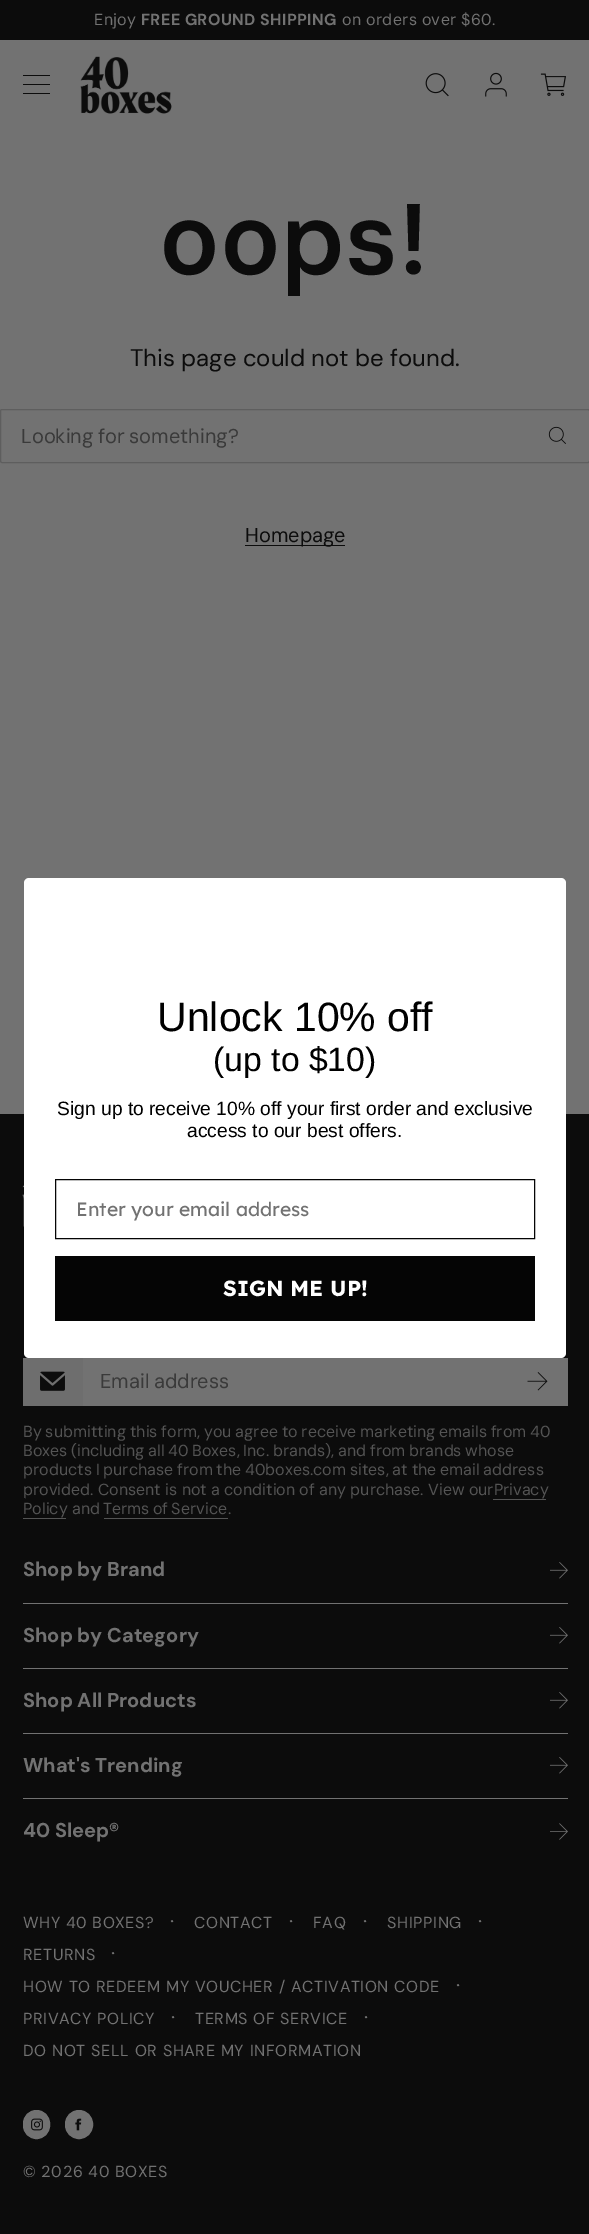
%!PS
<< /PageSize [589 2234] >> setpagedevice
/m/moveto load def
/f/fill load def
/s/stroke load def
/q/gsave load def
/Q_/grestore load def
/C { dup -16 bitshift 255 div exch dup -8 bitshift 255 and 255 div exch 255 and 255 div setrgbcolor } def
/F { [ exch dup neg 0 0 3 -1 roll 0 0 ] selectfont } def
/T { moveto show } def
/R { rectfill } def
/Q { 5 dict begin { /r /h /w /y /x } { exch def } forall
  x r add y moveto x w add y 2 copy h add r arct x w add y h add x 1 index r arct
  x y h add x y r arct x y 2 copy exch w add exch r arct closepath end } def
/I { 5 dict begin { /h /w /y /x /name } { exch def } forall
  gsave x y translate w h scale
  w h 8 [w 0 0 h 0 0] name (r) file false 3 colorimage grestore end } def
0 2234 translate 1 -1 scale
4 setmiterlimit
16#727272 C
0 0 589 2234 R
16#0C0C0C C
0 0 589 40 R
/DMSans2-Regular 16 F
16#727272 C
94 25 m .4 0 (Enjoy) ashow
/DMSans2-Bold 16 F
141 25 m .4 0 (FREE GROUND SHIPPING) ashow
/DMSans2-Regular 16 F
342 25 m -.5 0 32 .4 0 (on orders over $60.) awidthshow
16#0C0C0C C
23 84 27 1 R
23 75 27 1 R
23 93 27 1 R
(1.rgb) 80 56 92 58 I
(2.rgb) 425 73 24 24 I
(3.rgb) 485 72 22 25 I
(4.rgb) 540 73 26 23 I
/DMSans-SemiBold 100 F
(oops!) 159 274 T
/DMSans-Regular 24 F
(This page could not be found.) 130 366 T
16#5E5E5E C
.5 409.5 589 53 1.5 Q s
/DMSans2-Regular 20 F
16#3A3A3A C
21 443 m -1 0 32 (Looking for something?) widthshow
(5.rgb) 548 426 18 18 I
16#0C0C0C C
245 545 100 1 R
(Homepage) 245 542 T
0 1114 589 1120 R
(6.rgb) 22 1185 2 42 I
16#727272 C
83 1358 485 48 R
16#6E6E6E C
23 1358 60 48 R
(7.rgb) 40 1371 25 20 I
16#3A3A3A C
100 1388 m -1 0 32 (Email address) widthshow
(8.rgb) 527 1372 21 19 I
/DMSans2-Regular 16 F
16#545454 C
23 1437 m -.5 0 32 (By submitting this form, you agree to receive marketing emails from 40) widthshow
23 1456 m -.5 0 32 (Boxes \(including all 40 Boxes, Inc. brands\), and from brands whose) widthshow
23 1475 m -.5 0 32 (products I purchase from the 40boxes.com sites, at the email address) widthshow
(provided. Consent is not a condition of any purchase. View ourPrivacy) 23 1495 T
(Policy and) 23 1514 T
16#0C0C0C C
23 1498 2 1 R
16#545454 C
493 1499 53 1 R
23 1518 43 1 R
103 1514 m -1 0 32 (Terms of Service) widthshow
104 1518 124 1 R
(.) 228 1514 T
16#727272 C
23 1603 545 1 R
/DMSans-Bold 20 F
(Shop by Brand) 23 1576 T
(9.rgb) 550 1562 18 17 I
23 1668 545 1 R
(Shop by Category) 23 1642 T
(9.rgb) 550 1627 18 17 I
23 1733 545 1 R
(Shop All Products) 23 1707 T
(9.rgb) 550 1692 18 17 I
23 1798 545 1 R
(What's Trending) 23 1772 T
(9.rgb) 550 1757 18 17 I
(40 Sleep®) 23 1837 T
(10.rgb) 550 1823 18 17 I
/DMSans2-Regular 16 F
23 1928 m .65 0 (WHY 40 BOXES?) ashow
/DMSans2-Regular 20 F
(·) 170 1928 T
/DMSans2-Regular 16 F
194 1928 m .65 0 (CONTACT) ashow
/DMSans2-Regular 20 F
(·) 289 1928 T
/DMSans2-Regular 16 F
313 1928 m .65 0 (FAQ) ashow
/DMSans2-Regular 20 F
(·) 363 1928 T
/DMSans2-Regular 16 F
387 1928 m .65 0 (SHIPPING) ashow
/DMSans2-Regular 20 F
(·) 478 1928 T
/DMSans2-Regular 16 F
23 1960 m .65 0 (RETURNS) ashow
/DMSans2-Regular 20 F
(·) 111 1960 T
/DMSans2-Regular 16 F
23 1992 m .25 0 32 .65 0 (HOW TO REDEEM MY VOUCHER / ACTIVATION CODE) awidthshow
/DMSans2-Regular 20 F
(·) 456 1992 T
/DMSans2-Regular 16 F
23 2024 m .65 0 (PRIVACY POLICY) ashow
/DMSans2-Regular 20 F
(·) 171 2024 T
/DMSans2-Regular 16 F
195 2024 m .65 0 (TERMS OF SERVICE) ashow
/DMSans2-Regular 20 F
(·) 364 2024 T
/DMSans2-Regular 16 F
23 2056 m .25 0 32 .65 0 (DO NOT SELL OR SHARE MY INFORMATION) awidthshow
23.5 2110.5 26 28 13 Q q f Q_
s
(11.rgb) 31 2118 12 13 I
65.5 2110.5 27 28 13.5 Q q f Q_
s
(12.rgb) 75 2118 7 13 I
23 2177 m .65 0 (© 2026 40 BOXES) ashow
16#FFFFFF C
24 878 542 480 5 Q f
/LiberationSans-Regular 41 F
16#000000 C
(Unlock 10% off) 157 1031 T
/LiberationSans-Regular 33.75 F
(\(up to $10\)) 213 1071 T
/LiberationSans-Regular 19.25 F
(Sign up to receive 10% off your first order and exclusive) 57 1115 T
(access to our best offers.) 187 1137 T
16#050505 C
55.5 1179.5 479 59 rectstroke
/Lexend-Regular 19.25 F
16#727272 C
(Enter your email address) 76 1216 T
16#050505 C
55 1256 480 65 R
/Lexend-Bold 21.75 F
16#FFFFFF C
(SIGN ME UP!) 223 1296 T
showpage
